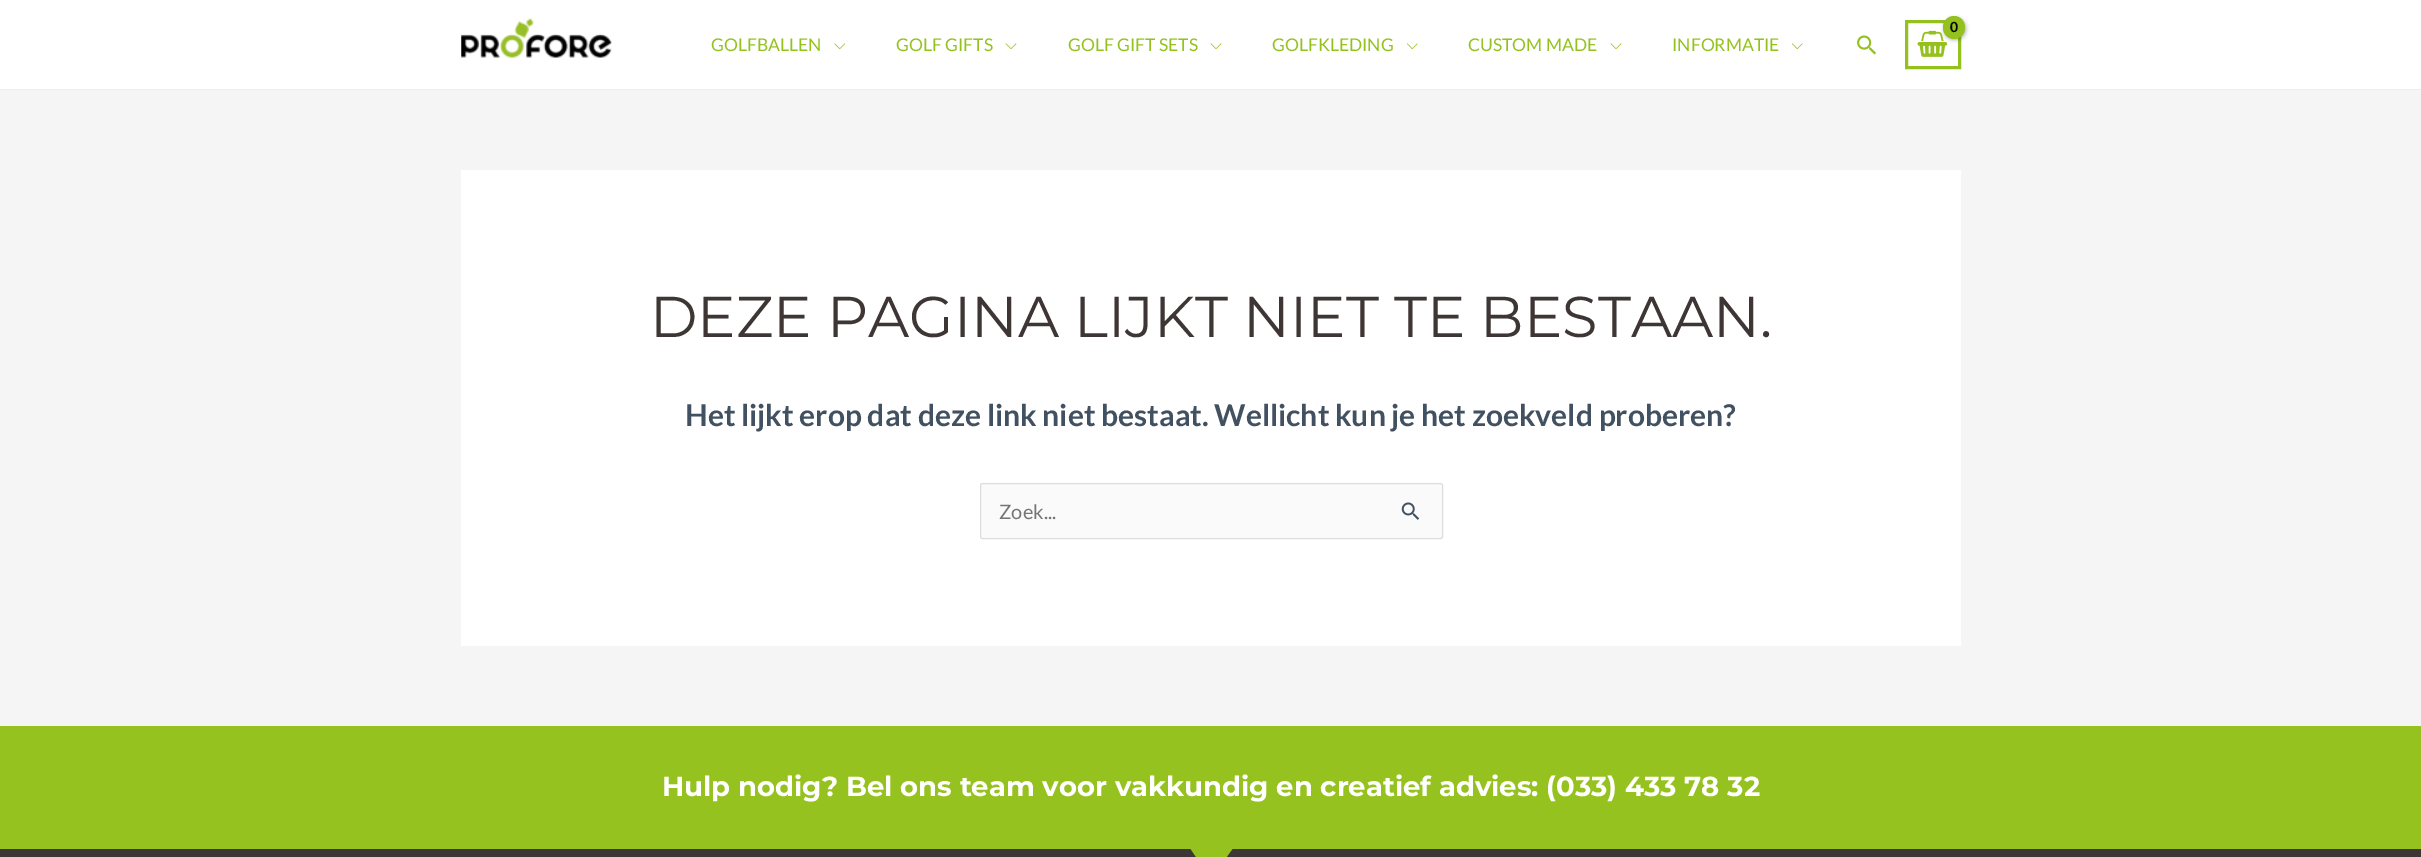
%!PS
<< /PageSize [2421 857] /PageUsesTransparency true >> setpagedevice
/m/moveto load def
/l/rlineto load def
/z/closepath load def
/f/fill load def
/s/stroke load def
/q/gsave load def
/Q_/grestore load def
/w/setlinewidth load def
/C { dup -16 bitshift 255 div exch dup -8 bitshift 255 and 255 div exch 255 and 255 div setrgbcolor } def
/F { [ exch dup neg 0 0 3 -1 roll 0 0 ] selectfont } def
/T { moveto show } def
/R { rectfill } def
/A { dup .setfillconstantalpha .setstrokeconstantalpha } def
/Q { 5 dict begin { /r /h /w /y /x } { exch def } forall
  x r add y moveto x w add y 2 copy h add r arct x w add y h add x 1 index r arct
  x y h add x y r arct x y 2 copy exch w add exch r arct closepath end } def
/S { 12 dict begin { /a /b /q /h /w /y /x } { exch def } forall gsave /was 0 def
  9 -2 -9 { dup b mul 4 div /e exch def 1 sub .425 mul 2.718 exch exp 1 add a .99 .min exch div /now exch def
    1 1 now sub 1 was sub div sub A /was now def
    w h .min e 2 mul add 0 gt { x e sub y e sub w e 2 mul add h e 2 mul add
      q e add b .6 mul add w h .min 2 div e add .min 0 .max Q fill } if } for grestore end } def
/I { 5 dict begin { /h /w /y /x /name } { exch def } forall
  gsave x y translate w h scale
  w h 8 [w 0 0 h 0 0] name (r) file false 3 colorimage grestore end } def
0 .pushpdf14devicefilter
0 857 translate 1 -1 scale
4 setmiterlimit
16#F5F5F5 C
0 0 2421 857 R
16#FFFFFF C
0 0 2421 89 R
16#EDEDED C
0 89 2421 1 R
(1.rgb) 461 18 151 40 I
16#95C11F C
3 w
1906.5 21.5 53 46 rectstroke
(2.rgb) 1917 30 31 27 I
16#000000 C
1944 18 22 22 11 2 .3 S
16#95C11F C
1943 16 22 23 11 Q f
/Lato-Bold 14 F
16#000000 C
1950 32 m -1 0 (0) ashow
/Lato-Regular 17.5 F
16#95C11F C
(GOLFBALLEN) 711 51 T
(3.rgb) 834 43 12 7 I
(GOLF GIFTS) 896 51 T
(4.rgb) 1005 43 12 7 I
(GOLF GIFT SETS) 1068 51 T
(4.rgb) 1210 43 12 7 I
(GOLFKLEDING) 1272 51 T
(5.rgb) 1406 43 12 7 I
(CUSTOM MADE) 1468 51 T
(4.rgb) 1610 43 12 7 I
(INFORMATIE) 1672 51 T
(5.rgb) 1791 43 12 7 I
(6.rgb) 1857 35 19 20 I
16#FFFFFF C
461 170 1500 476 R
/Montserrat-Thin 57.5 F
16#3E3535 C
(DEZE PAGINA LIJKT NIET TE BESTAAN.) 650 337 T
/Lato-Bold 30 F
16#415161 C
(Het lijkt erop dat deze link niet bestaat. Wellicht kun je het zoekveld proberen?) 685 426 T
16#FAFAFA C
980.5 483.5 462 55 2 Q q f Q_
16#DDDDDD C
1 w
s
/Lato-Regular 20 F
16#757575 C
(Zoek...) 999 519 T
(7.rgb) 1401 502 19 18 I
16#96C21F C
0 726 2421 123 R
/Montserrat-Bold 27.5 F
16#FFFFFF C
(Hulp nodig? Bel ons team voor vakkundig en creatief advies: \(033\) 433 78 32) 662 796 T
16#3E3535 C
0 849 2421 8 R
16#96C21F C
1211 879 m -21 -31 l 43 0 l z f
.poppdf14devicefilter showpage
